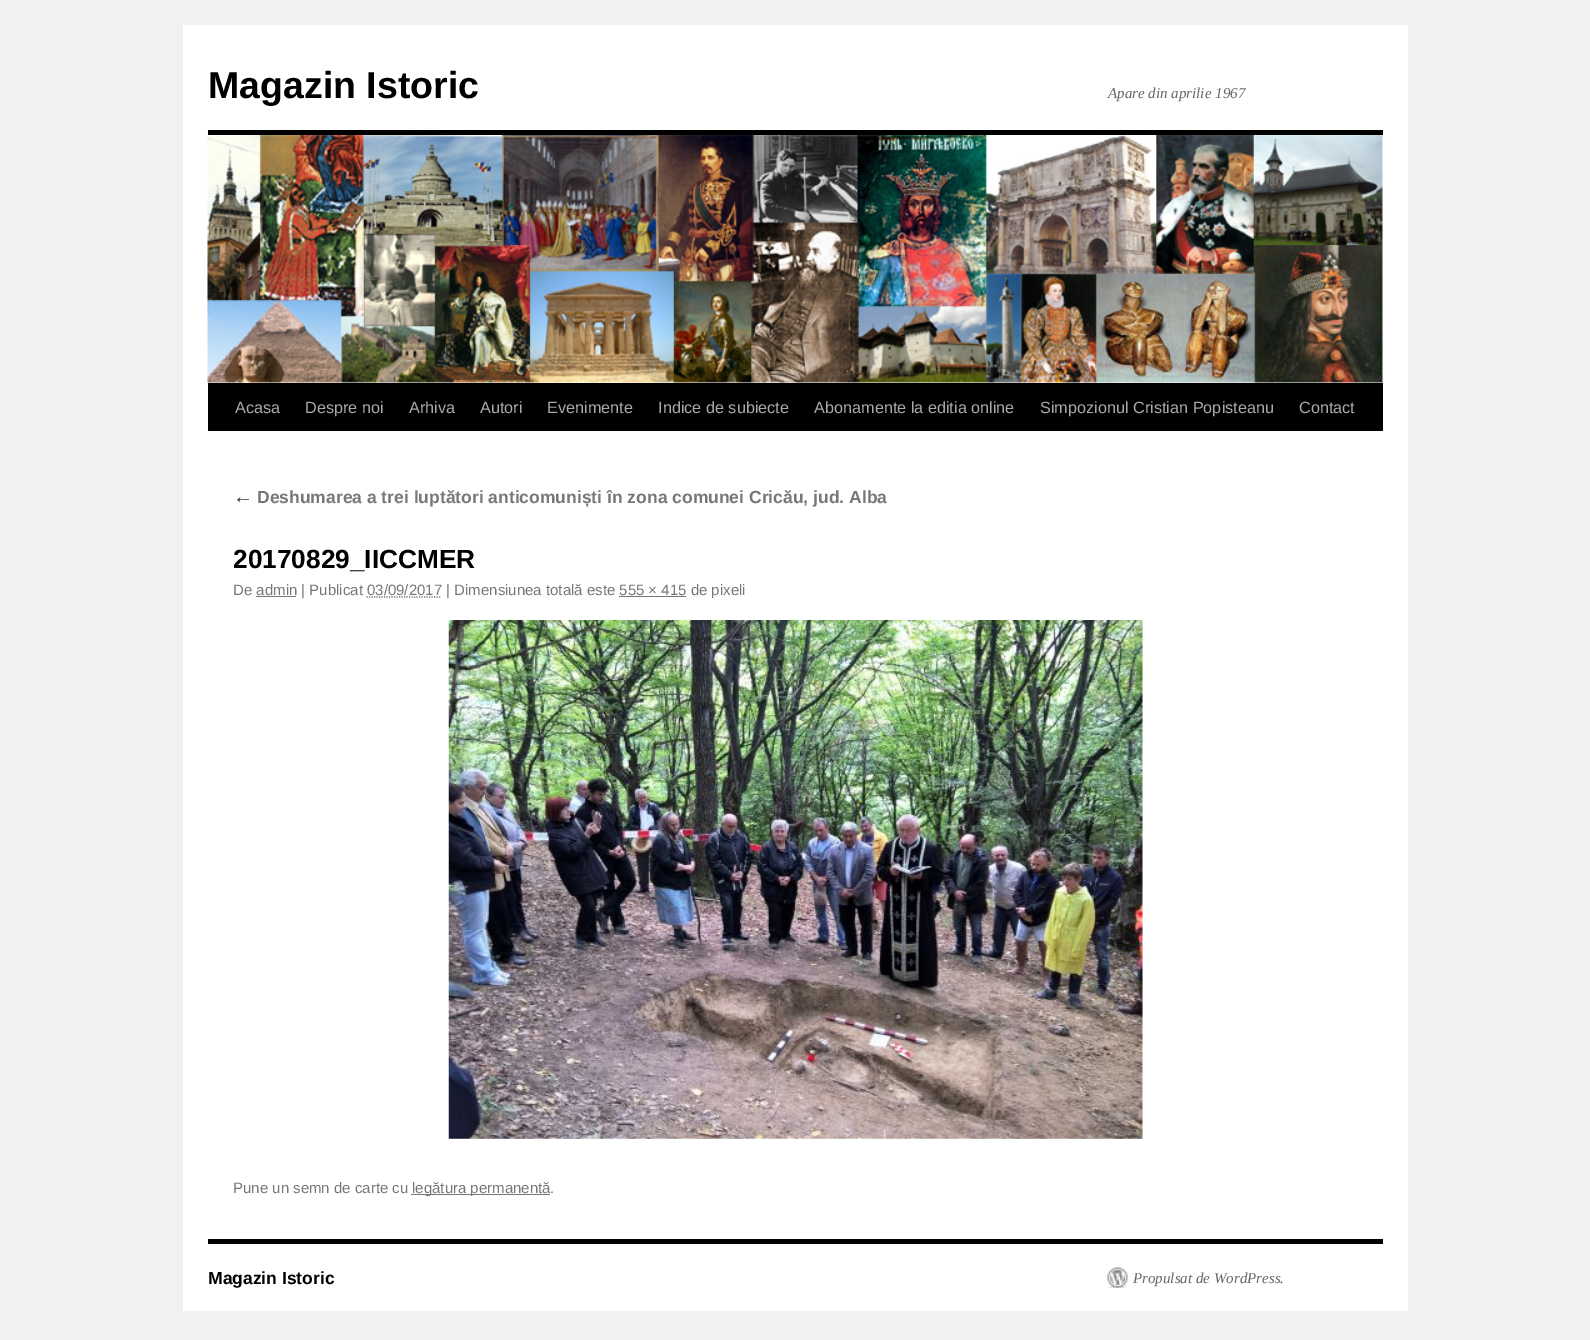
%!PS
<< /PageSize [1590 1340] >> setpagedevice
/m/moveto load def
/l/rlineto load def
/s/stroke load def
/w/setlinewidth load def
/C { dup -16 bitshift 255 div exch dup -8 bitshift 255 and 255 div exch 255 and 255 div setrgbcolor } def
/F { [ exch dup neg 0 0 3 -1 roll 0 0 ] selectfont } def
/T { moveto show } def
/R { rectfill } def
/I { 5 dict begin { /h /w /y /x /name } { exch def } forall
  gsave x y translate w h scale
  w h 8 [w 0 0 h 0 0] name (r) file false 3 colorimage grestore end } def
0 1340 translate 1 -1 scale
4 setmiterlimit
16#F1F1F1 C
0 0 1590 1340 R
16#FFFFFF C
183 25 1225 1286 R
/LiberationSans-Bold 37.5 F
16#000000 C
(Magazin Istoric) 208 98 T
/LiberationSerif-Italic 15 F
16#666666 C
(Apare din aprilie 1967) 1108 98 T
16#000000 C
208 130 1175 5 R
208 383 1175 48 R
(1.rgb) 207 135 1176 248 I
/LiberationSans-Regular 16.25 F
16#AAAAAA C
(Acasa) 235 413 T
(Despre noi) 305 413 T
(Arhiva) 409 413 T
(Autori) 480 413 T
(Evenimente) 547 413 T
(Indice de subiecte) 658 413 T
(Abonamente la editia online) 814 413 T
(Simpozionul Cristian Popisteanu) 1040 413 T
(Contact) 1299 413 T
/LiberationSerif-Italic 20 F
16#333333 C
(←) 233 503 T
/LiberationSans-Bold 17.5 F
16#777777 C
(Deshumarea a trei luptători anticomuniști în zona comunei Cricău, jud. Alba) 257 503 T
/LiberationSans-Bold 26.25 F
16#000000 C
(20170829_IICCMER) 233 568 T
/LiberationSans-Regular 15 F
16#777777 C
(De admin | Publicat 03/09/2017 | Dimensiunea totală este 555 × 415 de pixeli) 233 595 T
256 596 40 1 R
1.2 w
[1.25 1.25] 0 setdash
366.5 597 m 75 0 l s
619 596 67 1 R
(2.rgb) 448 620 695 519 I
(Pune un semn de carte cu) 233 1193 T
411 1194 139 1 R
(legătura permanentă.) 412 1193 T
16#000000 C
208 1239 1175 5 R
/LiberationSans-Bold 17.5 F
(Magazin Istoric) 208 1284 T
(3.rgb) 1107 1267 21 21 I
/LiberationSerif-Italic 15 F
16#666666 C
(Propulsat de WordPress.) 1133 1283 T
showpage
